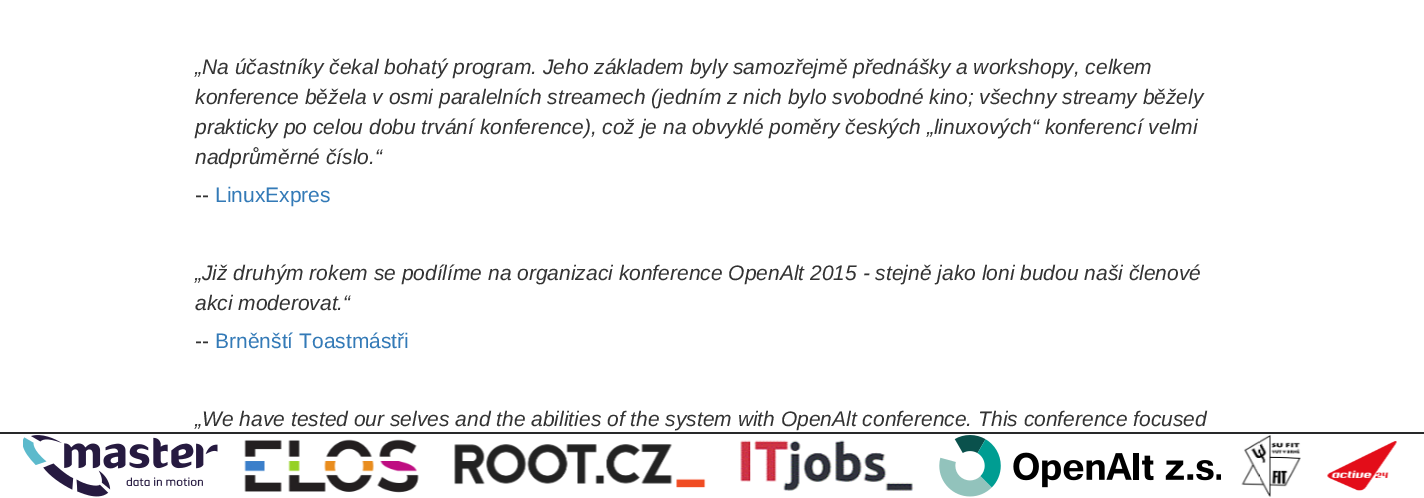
%!PS
<< /PageSize [1424 498] >> setpagedevice
/C { dup -16 bitshift 255 div exch dup -8 bitshift 255 and 255 div exch 255 and 255 div setrgbcolor } def
/F { [ exch dup neg 0 0 3 -1 roll 0 0 ] selectfont } def
/T { moveto show } def
/R { rectfill } def
/I { 5 dict begin { /h /w /y /x /name } { exch def } forall
  gsave x y translate w h scale
  w h 8 [w 0 0 h 0 0] name (r) file false 3 colorimage grestore end } def
0 498 translate 1 -1 scale
4 setmiterlimit
16#FFFFFF C
0 0 1424 498 R
/LiberationSans-Italic 21 F
16#333333 C
(„Na účastníky čekal bohatý program. Jeho základem byly samozřejmě přednášky a workshopy, celkem) 195 74 T
(konference běžela v osmi paralelních streamech \(jedním z nich bylo svobodné kino; všechny streamy běžely) 195 104 T
(prakticky po celou dobu trvání konference\), což je na obvyklé poměry českých „linuxových“ konferencí velmi) 195 134 T
(nadprůměrné číslo.“) 195 164 T
/LiberationSans-Regular 21 F
(--) 195 202 T
16#337AB7 C
(LinuxExpres) 215 202 T
/LiberationSans-Italic 21 F
16#333333 C
(„Již druhým rokem se podílíme na organizaci konference OpenAlt 2015 - stejně jako loni budou naši členové) 195 280 T
(akci moderovat.“) 195 310 T
/LiberationSans-Regular 21 F
(--) 195 348 T
16#337AB7 C
(Brněnští Toastmástři) 215 348 T
/LiberationSans-Italic 21 F
16#333333 C
(„We have tested our selves and the abilities of the system with OpenAlt conference. This conference focused) 195 426 T
16#28292A C
0 432 1424 2 R
(1.rgb) 23 435 195 62 I
(2.rgb) 244 439 175 54 I
(3.rgb) 454 444 252 44 I
(4.rgb) 740 440 174 51 I
(5.rgb) 939 435 282 62 I
(6.rgb) 1241 435 60 62 I
(7.rgb) 1327 441 70 50 I
showpage
